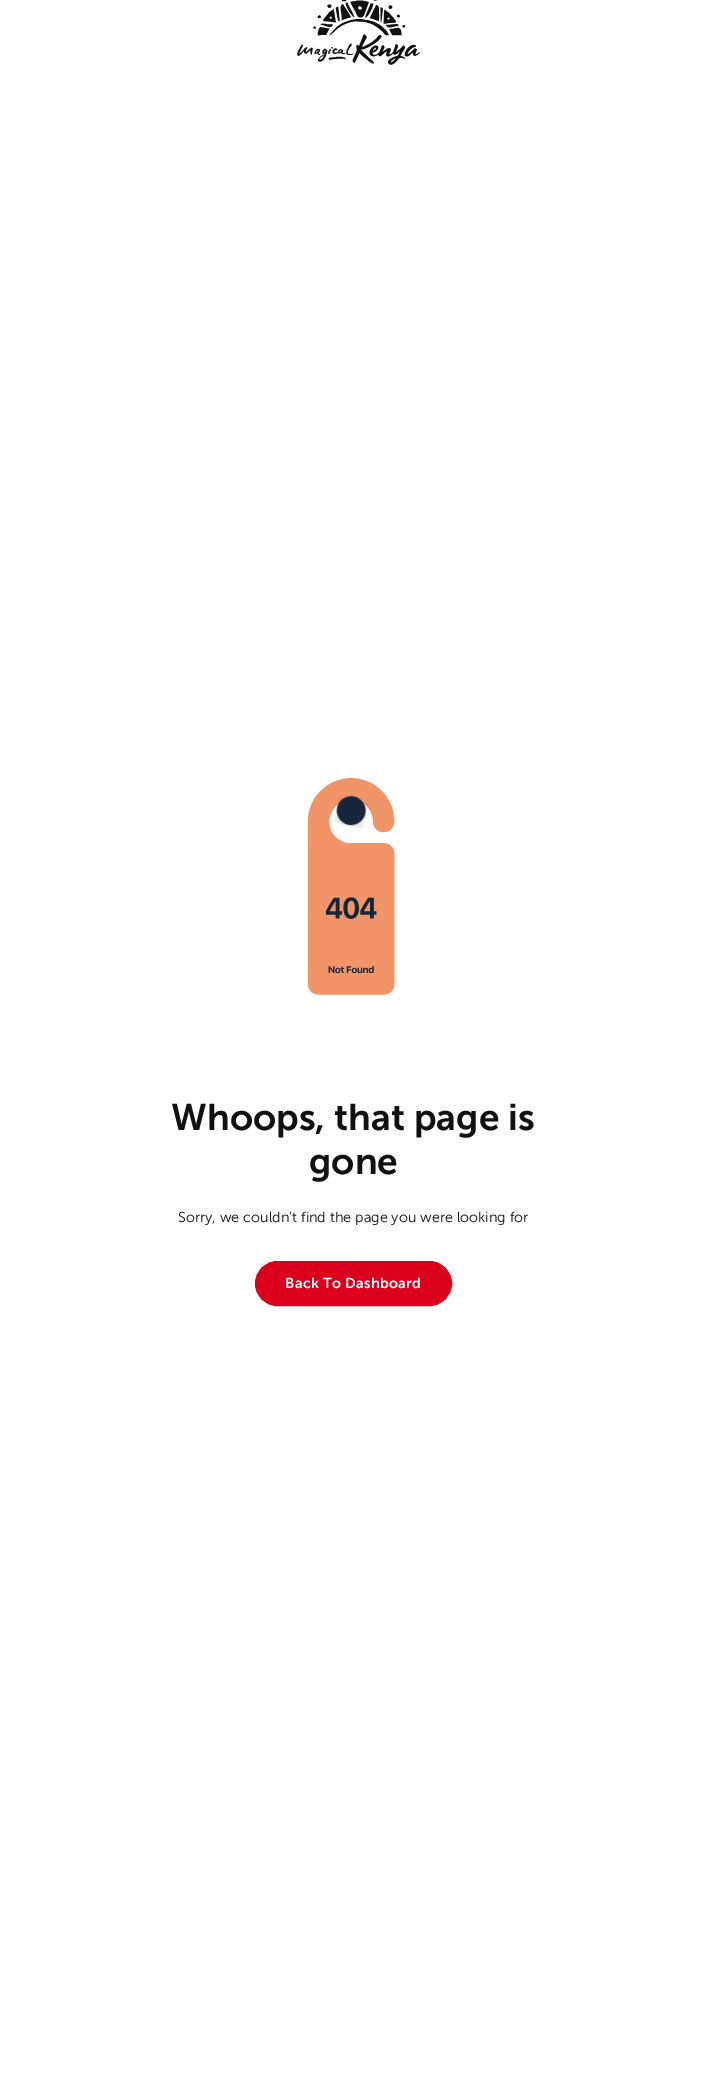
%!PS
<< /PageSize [707 2098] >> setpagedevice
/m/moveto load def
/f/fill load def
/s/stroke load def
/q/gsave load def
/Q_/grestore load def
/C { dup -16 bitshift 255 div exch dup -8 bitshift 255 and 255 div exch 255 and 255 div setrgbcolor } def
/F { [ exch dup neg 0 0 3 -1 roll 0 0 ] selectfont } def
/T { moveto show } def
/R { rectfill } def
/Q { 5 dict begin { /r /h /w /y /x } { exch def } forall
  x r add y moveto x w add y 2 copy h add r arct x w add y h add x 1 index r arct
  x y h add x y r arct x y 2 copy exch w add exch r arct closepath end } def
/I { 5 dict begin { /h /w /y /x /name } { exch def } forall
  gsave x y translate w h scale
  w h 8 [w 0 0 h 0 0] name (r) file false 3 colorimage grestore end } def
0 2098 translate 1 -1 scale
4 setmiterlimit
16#FFFFFF C
0 0 707 2098 R
(1.rgb) 297 0 123 65 I
(2.rgb) 307 778 88 217 I
/MuseoSans-SemiBold 37.1 F
16#111111 C
(Whoops, that page is) 171 1130 T
(gone) 309 1174 T
/MuseoSans-Light 14.45 F
(Sorry, we couldn’t find the page you were looking for) 178 1222 T
16#DB001C C
255.5 1261.5 196 44 22 Q q f Q_
s
/MuseoSans-SemiBold 14.45 F
16#FFFFFF C
285 1288 m .3 0 (Back To Dashboard) ashow
showpage
